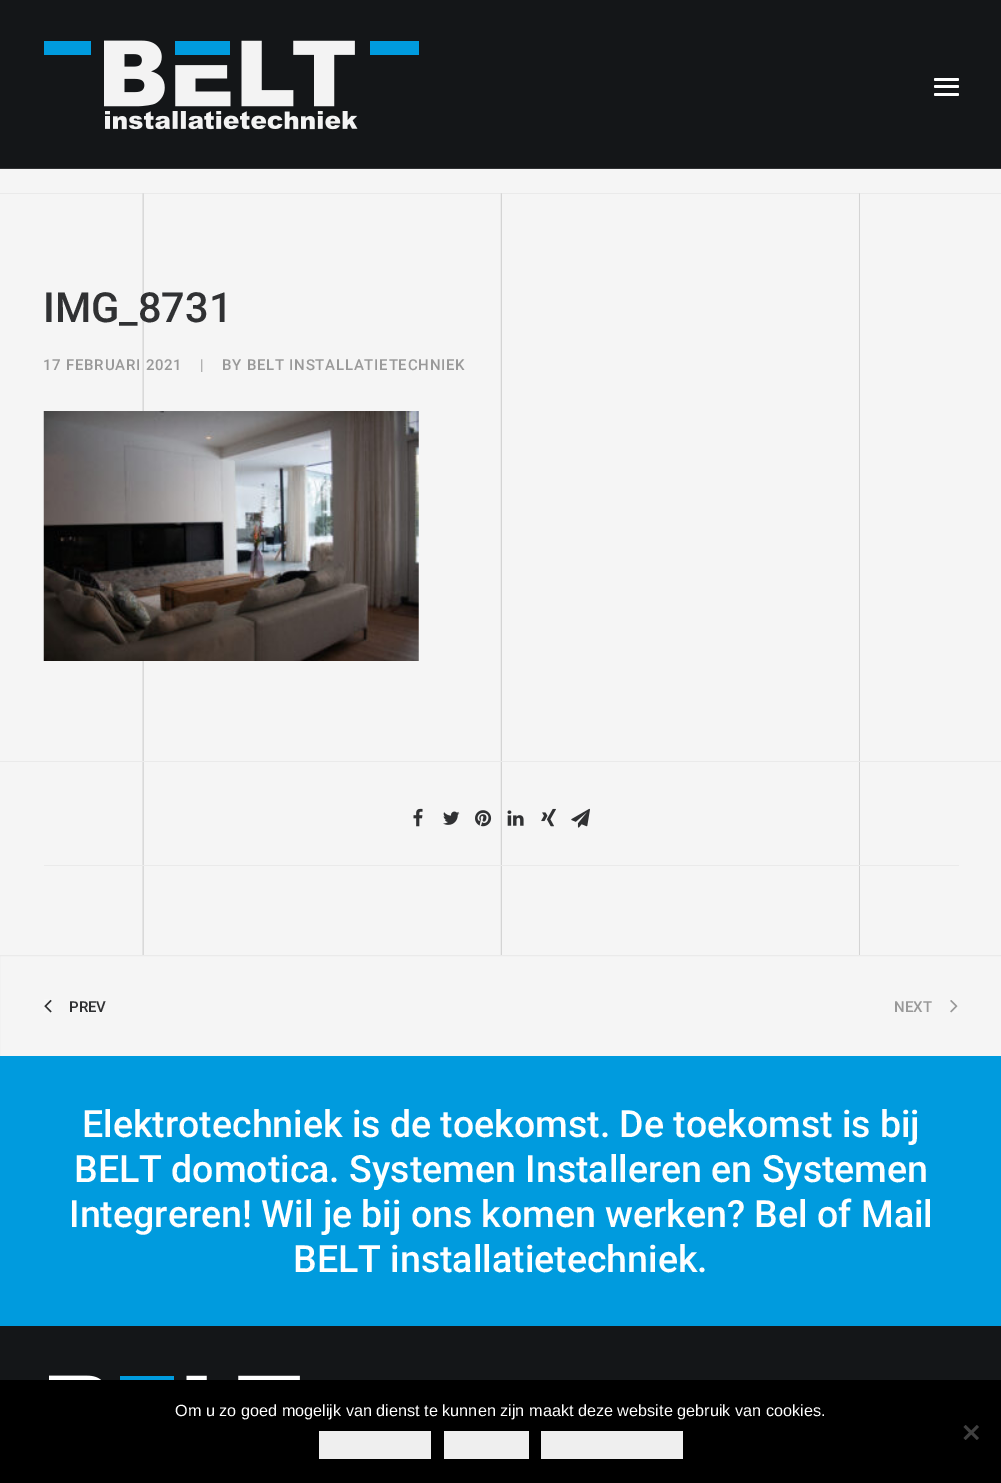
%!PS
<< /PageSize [1001 1483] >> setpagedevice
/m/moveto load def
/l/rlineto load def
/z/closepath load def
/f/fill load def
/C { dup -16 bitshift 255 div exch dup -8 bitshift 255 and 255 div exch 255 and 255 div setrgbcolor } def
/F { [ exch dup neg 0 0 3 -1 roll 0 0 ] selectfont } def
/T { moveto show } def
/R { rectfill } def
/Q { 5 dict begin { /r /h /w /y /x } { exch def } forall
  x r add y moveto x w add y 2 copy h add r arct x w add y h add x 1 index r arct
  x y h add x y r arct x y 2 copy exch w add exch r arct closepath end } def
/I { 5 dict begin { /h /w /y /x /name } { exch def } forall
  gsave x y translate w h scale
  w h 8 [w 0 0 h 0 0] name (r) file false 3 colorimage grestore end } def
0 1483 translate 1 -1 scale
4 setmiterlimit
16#F5F5F5 C
0 0 1001 1483 R
16#141618 C
0 0 1001 168 R
16#303133 C
0 168 1001 1 R
(1.rgb) 44 40 375 90 I
16#FFFFFF C
934 85 25 3 1.5 Q f
934 78 25 3 1.5 Q f
934 93 25 3 1.5 Q f
16#EAEAEA C
0 193 1001 1 R
(2.rgb) 142 193 718 762 I
/Roboto-Medium 41.5 F
16#303133 C
(IMG_8731) 43 322 T
/Roboto-Medium 15 F
16#999999 C
43 370 m .75 0 (17 FEBRUARI 2021) ashow
/Roboto-Regular 15 F
200 370 m .75 0 (|) ashow
/Roboto-Medium 15 F
222 370 m .75 0 (BY BELT INSTALLATIETECHNIEK) ashow
(3.rgb) 43 411 376 250 I
16#EAEAEA C
0 761 1001 1 R
44 865 915 1 R
(4.rgb) 413 808 10 19 I
(5.rgb) 443 811 17 14 I
(6.rgb) 475 810 17 17 I
(7.rgb) 507 810 17 16 I
(8.rgb) 541 808 15 19 I
(9.rgb) 571 808 19 20 I
-.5 955.5 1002 102 rectstroke
(10.rgb) 44 999 8 14 I
16#303133 C
(PREV) 69 1012 T
16#999999 C
(NEXT) 894 1012 T
(11.rgb) 950 1000 8 13 I
16#009BDE C
0 1056 1001 270 R
/Roboto-Medium 37.5 F
16#FFFFFF C
(Elektrotechniek is de toekomst. De toekomst is bij) 82 1137 T
(BELT domotica. Systemen Installeren en Systemen) 74 1182 T
(Integreren! Wil je bij ons komen werken? Bel of Mail) 69 1227 T
(BELT installatietechniek.) 293 1272 T
16#141618 C
0 1326 1001 54 R
(12.rgb) 49 1375 251 5 I
16#000000 C
0 1380 1001 103 R
/LiberationSans-Regular 16.25 F
16#FFFFFF C
(Om u zo goed mogelijk van dienst te kunnen zijn maakt deze website gebruik van cookies.) 175 1416 T
16#EFEFEF C
319 1431 112 28 R
444 1431 85 28 R
541 1431 142 28 R
16#404040 C
977 1425 m 2 2 l -13.5 13 l -2 -2 l z f
963.5 1427 m 2 -2 l 13.5 13 l -2 2 l z f
showpage
